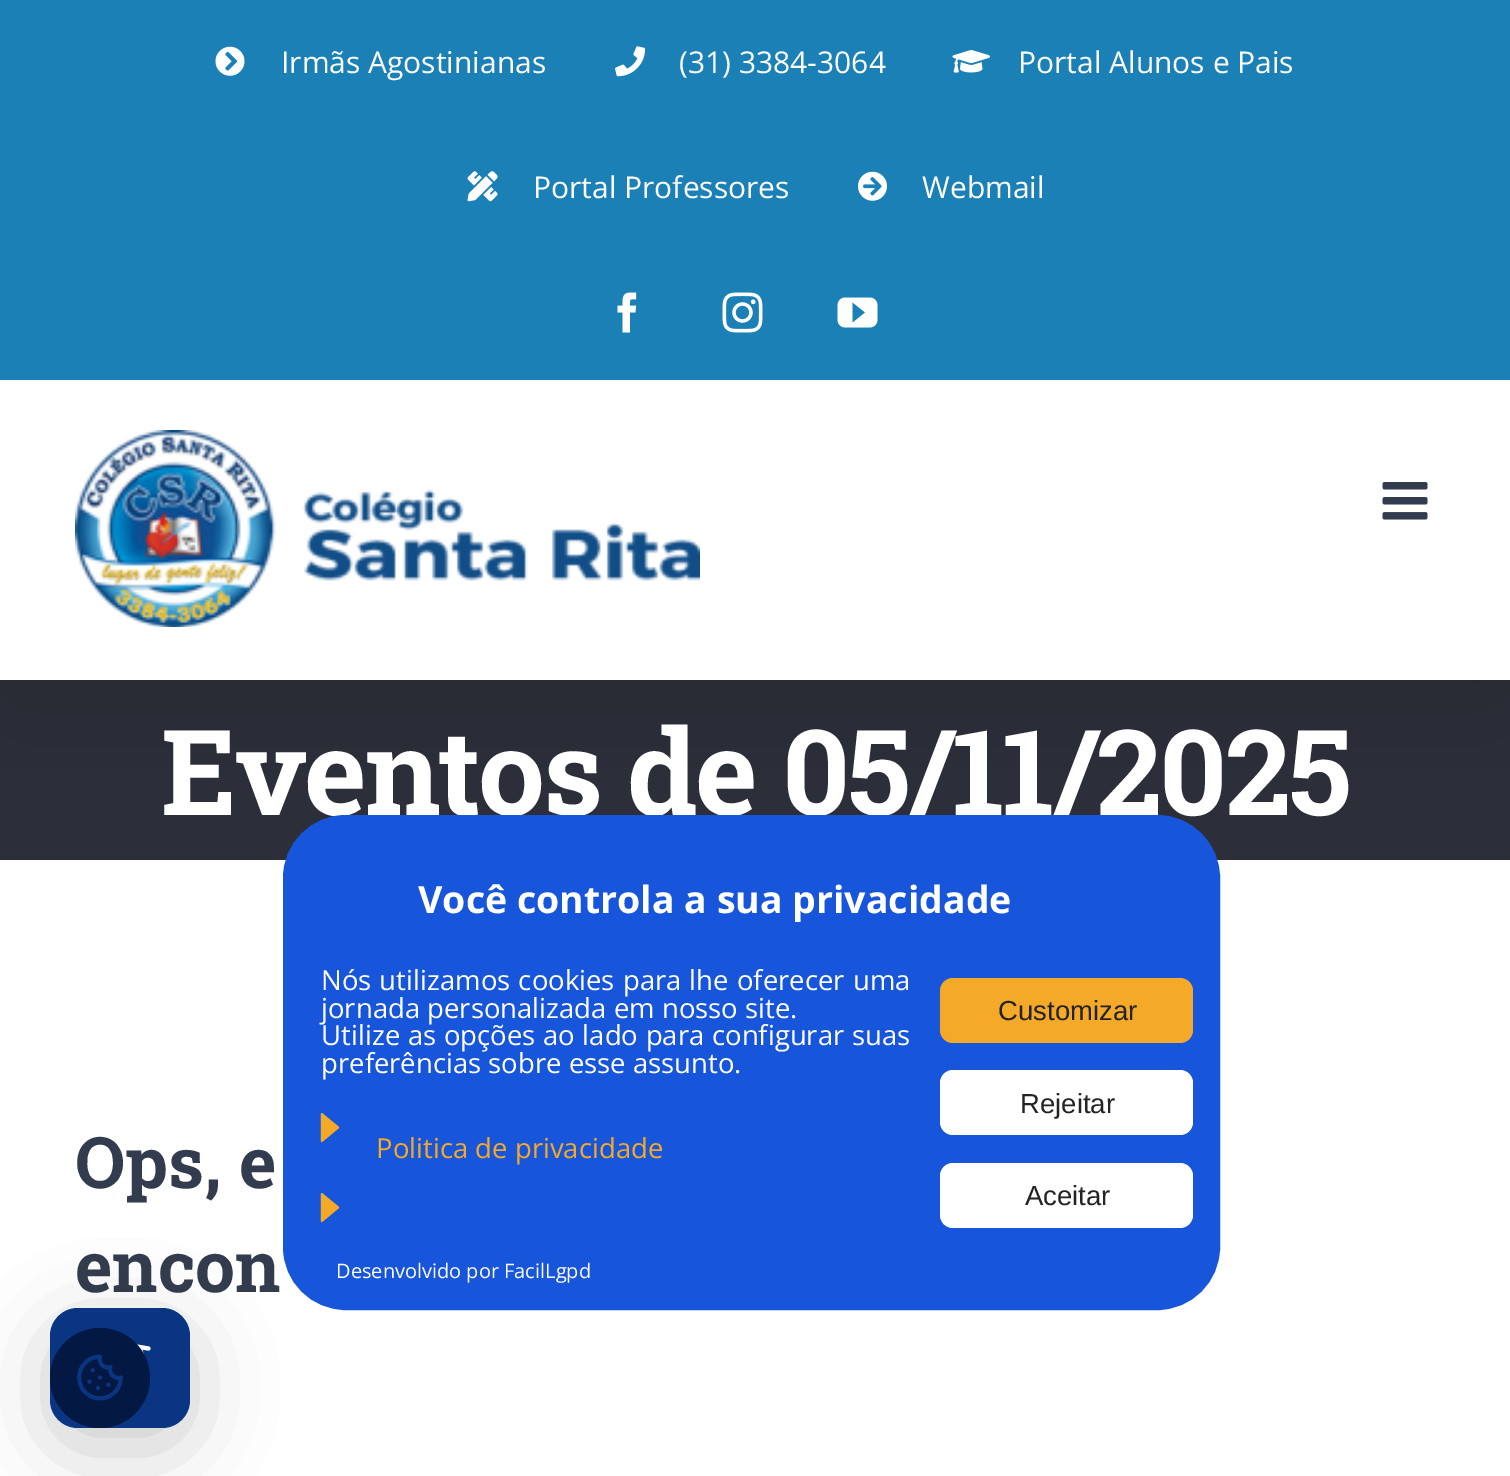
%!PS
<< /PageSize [1510 1476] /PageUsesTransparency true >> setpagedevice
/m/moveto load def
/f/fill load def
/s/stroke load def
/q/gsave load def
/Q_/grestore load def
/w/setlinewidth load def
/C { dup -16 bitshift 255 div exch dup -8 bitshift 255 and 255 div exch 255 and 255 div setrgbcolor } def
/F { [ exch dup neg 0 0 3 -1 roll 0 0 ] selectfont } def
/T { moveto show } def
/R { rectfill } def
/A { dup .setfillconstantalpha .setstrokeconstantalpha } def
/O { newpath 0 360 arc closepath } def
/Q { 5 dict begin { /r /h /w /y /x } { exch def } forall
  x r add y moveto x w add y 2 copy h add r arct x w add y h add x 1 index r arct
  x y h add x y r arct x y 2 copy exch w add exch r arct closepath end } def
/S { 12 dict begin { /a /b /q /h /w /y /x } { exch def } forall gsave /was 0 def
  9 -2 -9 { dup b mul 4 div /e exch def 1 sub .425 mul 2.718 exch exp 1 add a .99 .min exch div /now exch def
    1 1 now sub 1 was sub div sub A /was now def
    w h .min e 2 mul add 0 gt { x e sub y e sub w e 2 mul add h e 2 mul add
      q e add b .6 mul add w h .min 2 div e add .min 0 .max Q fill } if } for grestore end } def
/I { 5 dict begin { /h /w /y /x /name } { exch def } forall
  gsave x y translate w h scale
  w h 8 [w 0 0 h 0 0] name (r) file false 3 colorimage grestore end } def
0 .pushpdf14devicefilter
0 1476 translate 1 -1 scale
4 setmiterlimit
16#FFFFFF C
0 0 1510 1476 R
16#2C2F39 C
0 680 1510 180 R
q
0 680 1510 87 rectclip
16#000000 C
5 30 1500 670 0 62.5 .14 S
Q_
16#1A80B6 C
0 0 1510 380 R
(1.rgb) 215 46 30 30 I
/OpenSans-Regular 30 F
16#FFFFFF C
(Irmãs Agostinianas) 281 73 T
(2.rgb) 615 46 31 31 I
(\(31\) 3384-3064) 679 73 T
(3.rgb) 952 50 38 23 I
(Portal Alunos e Pais) 1018 73 T
(4.rgb) 467 171 31 31 I
(Portal Professores) 533 198 T
(5.rgb) 858 171 29 30 I
(Webmail) 922 198 T
(6.rgb) 617 292 20 41 I
(7.rgb) 722 292 41 41 I
(8.rgb) 837 297 41 31 I
(9.rgb) 75 430 625 197 I
(10.rgb) 1382 482 46 38 I
/RobotoSlab-Bold 119 F
161 815 m -2.5 0 (Eventos de 05/11/2025) ashow
/RobotoSlab-Bold 71 F
16#333C4E C
(Ops, e) 75 1188 T
(encon) 75 1292 T
16#000000 C
50 1328 140 120 28 40 .2 S
16#1756DA C
284.5 816.5 934 492 61.5 Q q f Q_
3 w
s
/OpenSans-Bold 37.5 F
16#FFFFFF C
(Você controla a sua privacidade) 418 913 T
/OpenSans-Regular 27.5 F
321 990 m 1 0 32 (Nós utilizamos cookies para lhe oferecer uma) widthshow
(jornada personalizada em nosso site.) 321 1018 T
321 1045 m .5 0 32 (Utilize as opções ao lado para configurar suas) widthshow
(preferências sobre esse assunto.) 321 1073 T
(11.rgb) 320 1112 20 31 I
16#F4A928 C
(Politica de privacidade) 376 1158 T
(11.rgb) 320 1192 20 31 I
940 978 253 65 13 Q f
/LiberationSans-Regular 27.5 F
16#232323 C
(Customizar) 998 1020 T
16#FFFFFF C
940 1070 253 65 13 Q f
16#232323 C
(Rejeitar) 1020 1113 T
16#FFFFFF C
940 1163 253 65 13 Q f
16#232323 C
(Aceitar) 1025 1205 T
/OpenSans-Regular 20 F
16#FFFFFF C
(Desenvolvido por FacilLgpd) 336 1278 T
16#093582 C
50 1308 140 120 28 Q f
(13.rgb) 136 1344 15 38 I
16#031842 C
100 1378 50 O f
(12.rgb) 77 1354 46 47 I
.poppdf14devicefilter showpage
